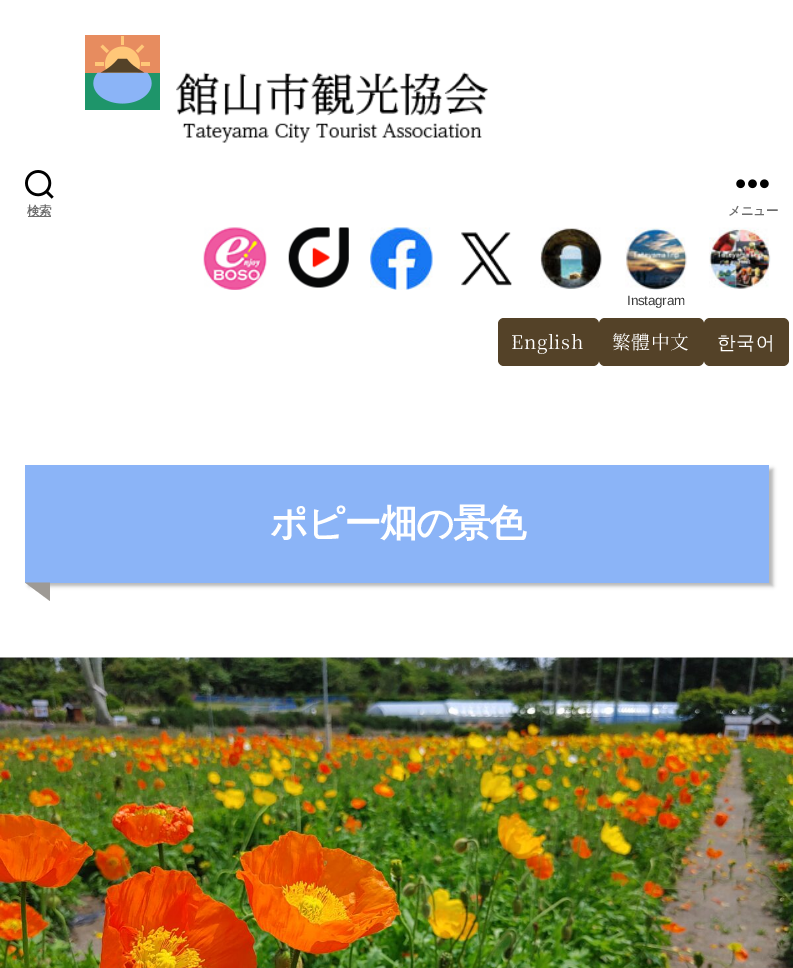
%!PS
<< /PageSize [793 968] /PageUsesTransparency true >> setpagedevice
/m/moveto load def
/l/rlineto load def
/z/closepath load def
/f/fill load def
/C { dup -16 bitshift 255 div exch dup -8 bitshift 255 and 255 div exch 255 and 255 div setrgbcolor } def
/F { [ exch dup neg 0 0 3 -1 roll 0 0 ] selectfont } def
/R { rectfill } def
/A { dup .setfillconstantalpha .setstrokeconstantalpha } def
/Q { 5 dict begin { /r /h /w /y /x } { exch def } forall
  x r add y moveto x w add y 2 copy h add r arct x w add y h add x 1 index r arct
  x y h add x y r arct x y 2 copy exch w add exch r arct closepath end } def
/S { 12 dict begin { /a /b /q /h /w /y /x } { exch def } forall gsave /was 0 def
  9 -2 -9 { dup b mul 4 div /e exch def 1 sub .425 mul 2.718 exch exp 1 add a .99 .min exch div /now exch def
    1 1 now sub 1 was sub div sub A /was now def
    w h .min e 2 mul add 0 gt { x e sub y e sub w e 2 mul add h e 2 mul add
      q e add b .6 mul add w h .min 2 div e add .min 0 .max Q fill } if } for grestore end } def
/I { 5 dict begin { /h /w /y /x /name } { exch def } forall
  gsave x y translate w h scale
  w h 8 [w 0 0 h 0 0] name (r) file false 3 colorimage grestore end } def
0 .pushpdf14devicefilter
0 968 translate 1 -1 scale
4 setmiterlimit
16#FFFFFF C
0 0 793 968 R
(1.rgb) 85 35 75 75 I
(2.rgb) 176 72 312 71 I
(3.rgb) 25 170 29 29 I
16#6D6D6D C
28 216 23 1 R
/WenQuanYiZenHei-Bold 12.5 F
27 215 m -.25 0 (検索) ashow
(4.rgb) 736 179 33 10 I
728 215 m -.25 0 (メニュー) ashow
(5.rgb) 203 227 64 63 I
(6.rgb) 288 227 61 61 I
(7.rgb) 370 227 63 63 I
(8.rgb) 461 232 51 54 I
(9.rgb) 540 227 62 63 I
(10.rgb) 709 227 62 63 I
(11.rgb) 625 227 63 63 I
/LiberationSans-Regular 13.5 F
16#3B3B3B C
627 305 m -.25 0 (Instagram) ashow
16#544228 C
498 318 101 48 6 Q f
/NotoSerifJP-Regular 18.75 F
16#FFFFFF C
511 349 m .5 0 (English) ashow
16#544228 C
599 318 105 48 6 Q f
16#FFFFFF C
612 349 m .5 0 (繁體中文) ashow
16#544228 C
704 318 85 48 6 Q f
/WenQuanYiZenHei-Medium 18.75 F
16#FFFFFF C
717 349 m .5 0 (한국어) ashow
16#000000 C
29 469 744 117 0 2 .3 S
16#8BB4F7 C
25 465 744 118 R
/WenQuanYiZenHei-Bold 37.5 F
16#FFFFFF C
270 536 m -1.5 0 (ポピー畑の景色) ashow
16#9E9A95 C
50 582.5 m 0 18.5 l -25 -18.5 l z f
(12.rgb) 0 657 793 311 I
.poppdf14devicefilter showpage
